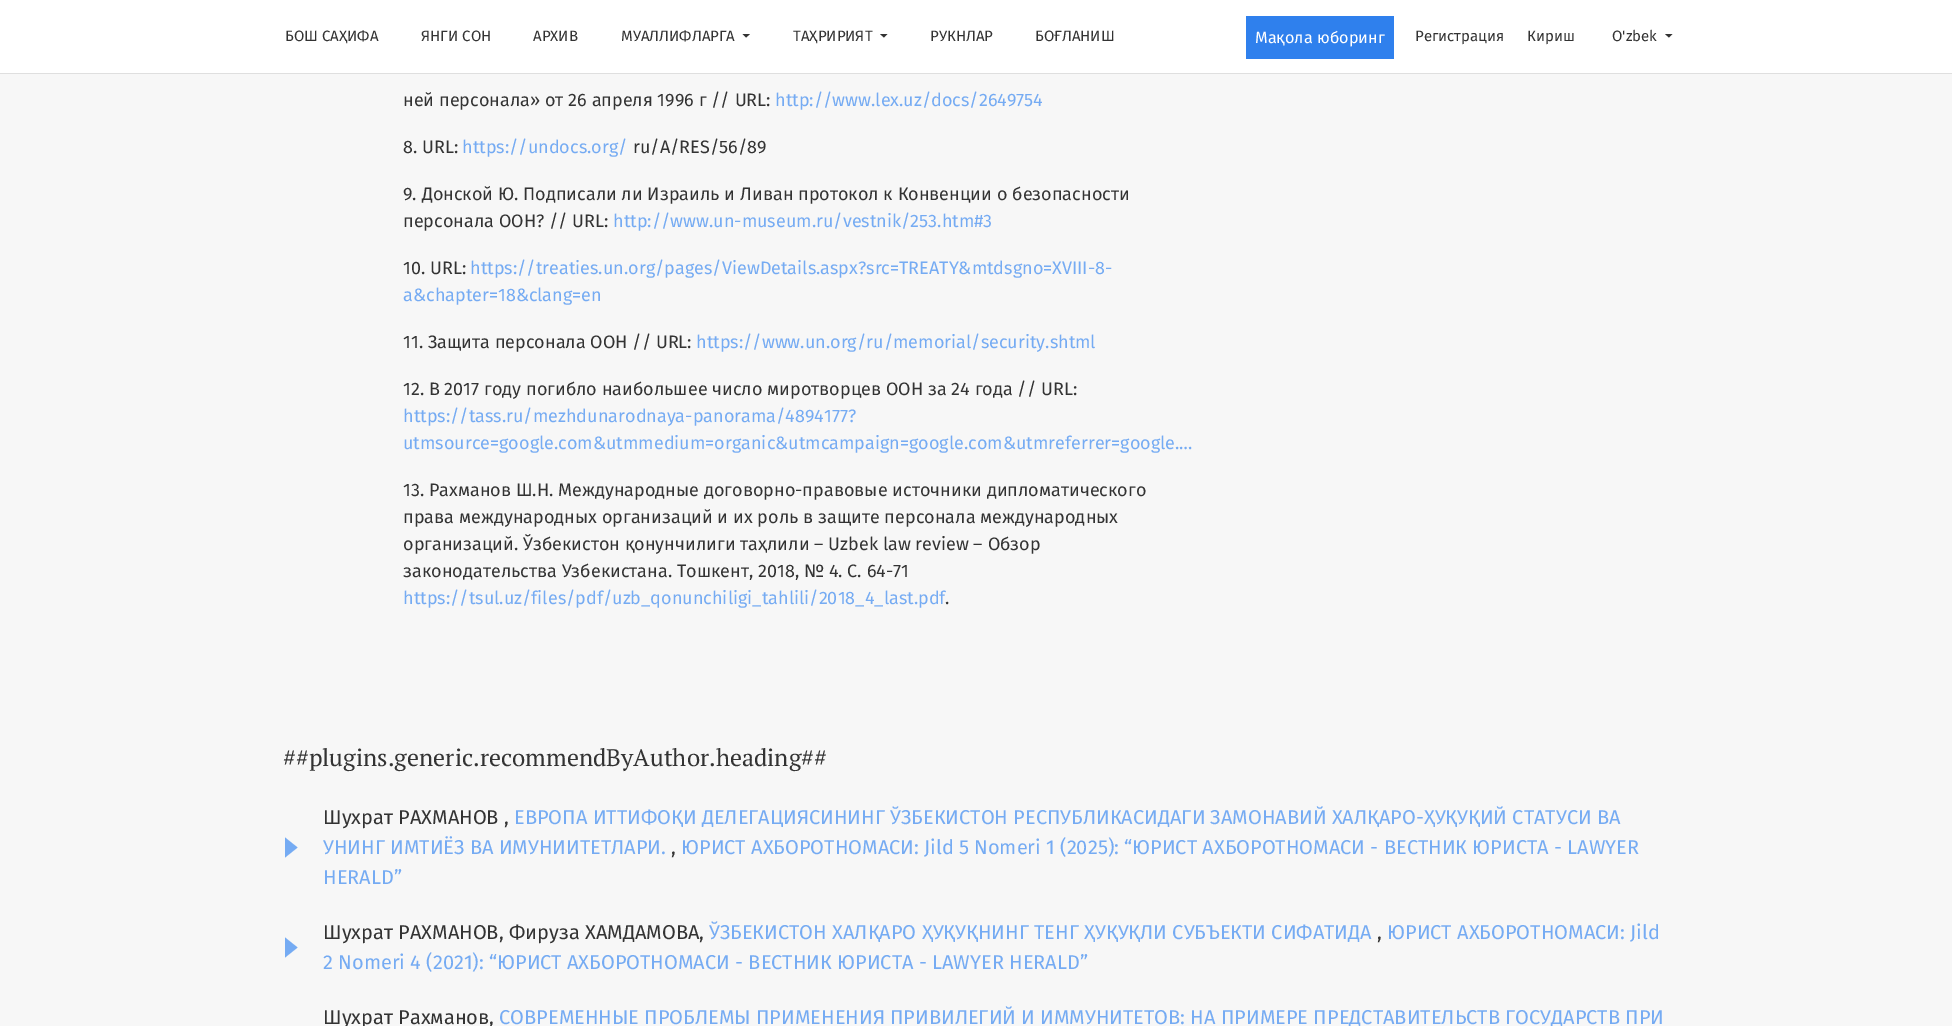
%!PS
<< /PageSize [1952 1026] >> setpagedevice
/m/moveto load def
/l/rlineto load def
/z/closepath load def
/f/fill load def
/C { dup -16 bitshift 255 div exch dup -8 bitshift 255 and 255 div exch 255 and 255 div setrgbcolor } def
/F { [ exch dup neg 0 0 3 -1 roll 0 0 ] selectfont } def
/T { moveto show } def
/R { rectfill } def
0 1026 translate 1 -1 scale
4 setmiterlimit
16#F7F7F7 C
0 0 1952 1026 R
16#FFFFFF C
0 0 1952 73 R
16#DFDFDF C
0 73 1952 1 R
/FiraSans-Regular 15 F
16#333333 C
(БОШ САҲИФА) 285 41 T
(ЯНГИ СОН) 421 41 T
(АРХИВ) 533 41 T
(МУАЛЛИФЛАРГА) 621 41 T
742.5 34 m 7.5 0 l -4 3.5 l z f
(ТАҲРИРИЯТ) 793 41 T
880 34 m 7.5 0 l -3.5 3.5 l z f
(РУКНЛАР) 930 41 T
(БОҒЛАНИШ) 1035 41 T
16#2F80ED C
1246 16 148 43 R
/FiraSans-Regular 16.25 F
16#FFFFFF C
(Мақола юборинг) 1255 43 T
/FiraSans-Regular 15 F
16#333333 C
(Регистрация) 1415 41 T
(Кириш) 1527 41 T
(O'zbek) 1612 41 T
1665 34 m 7.5 0 l -3.5 3.5 l z f
/FiraSans-Regular 18 F
(ней персонала» от 26 апреля 1996 г // URL:) 403 106 T
16#75ABF3 C
(http://www.lex.uz/docs/2649754) 775 106 T
16#333333 C
(8. URL:) 403 153 T
16#75ABF3 C
(https://undocs.org/) 462 153 T
16#333333 C
(ru/A/RES/56/89) 633 153 T
(9. Донской Ю. Подписали ли Израиль и Ливан протокол к Конвенции о безопасности) 403 200 T
(персонала ООН? // URL:) 403 227 T
16#75ABF3 C
(http://www.un-museum.ru/vestnik/253.htm#3) 613 227 T
16#333333 C
(10. URL:) 403 274 T
16#75ABF3 C
(https://treaties.un.org/pages/ViewDetails.aspx?src=TREATY&mtdsgno=XVIII-8-) 470 274 T
(a&chapter=18&clang=en) 403 301 T
16#333333 C
(11. Защита персонала ООН // URL:) 403 348 T
16#75ABF3 C
(https://www.un.org/ru/memorial/security.shtml) 696 348 T
16#333333 C
(12. В 2017 году погибло наибольшее число миротворцев ООН за 24 года // URL:) 403 395 T
16#75ABF3 C
(https://tass.ru/mezhdunarodnaya-panorama/4894177?) 403 422 T
(utmsource=google.com&utmmedium=organic&utmcampaign=google.com&utmreferrer=google.…) 403 449 T
16#333333 C
(13. Рахманов Ш.Н. Международные договорно-правовые источники дипломатического) 403 496 T
(права международных организаций и их роль в защите персонала международных) 403 523 T
(организаций. Ўзбекистон қонунчилиги таҳлили – Uzbek law review – Обзор) 403 550 T
(законодательства Узбекистана. Тошкент, 2018, № 4. С. 64-71) 403 577 T
16#75ABF3 C
(https://tsul.uz/files/pdf/uzb_qonunchiligi_tahlili/2018_4_last.pdf) 403 604 T
16#333333 C
(.) 945 604 T
/PTSerif-Regular 24 F
(##plugins.generic.recommendByAuthor.heading##) 283 766 T
/FiraSans-Regular 20 F
(Шухрат РАХМАНОВ ,) 323 824 T
16#75ABF3 C
(ЕВРОПА ИТТИФОҚИ ДЕЛЕГАЦИЯСИНИНГ ЎЗБEКИСТОН РEСПУБЛИКАСИДАГИ ЗАМОНАВИЙ ХАЛҚАРО-ҲУҚУҚИЙ СТАТУСИ ВА) 514 824 T
285 857.5 m 0 -20 l 12.5 10 l z f
(УНИНГ ИМТИЁЗ ВА ИМУНИИТEТЛАРИ.) 323 854 T
16#333333 C
(,) 671 854 T
16#75ABF3 C
(ЮРИСТ АХБОРОТНОМАСИ: Jild 5 Nomeri 1 \(2025\): “ЮРИСТ АХБОРОТНОМАСИ - ВЕСТНИК ЮРИСТА - LAWYER) 681 854 T
(HERALD”) 323 884 T
285 957.5 m 0 -20 l 12.5 10 l z f
16#333333 C
(Шухрат РАХМАНОВ, Фируза ХАМДАМОВА,) 323 939 T
16#75ABF3 C
(ЎЗБЕКИСТОН ХАЛҚАРО ҲУҚУҚНИНГ ТЕНГ ҲУҚУҚЛИ СУБЪЕКТИ СИФАТИДА) 709 939 T
16#333333 C
(,) 1377 939 T
16#75ABF3 C
(ЮРИСТ АХБОРОТНОМАСИ: Jild) 1387 939 T
(2 Nomeri 4 \(2021\): “ЮРИСТ АХБОРОТНОМАСИ - ВЕСТНИК ЮРИСТА - LAWYER HERALD”) 323 969 T
16#333333 C
(Шухрат Рахманов,) 323 1024 T
16#75ABF3 C
(СОВРЕМЕННЫЕ ПРОБЛЕМЫ ПРИМЕНЕНИЯ ПРИВИЛЕГИЙ И ИММУНИТЕТОВ: НА ПРИМЕРЕ ПРЕДСТАВИТЕЛЬСТВ ГОСУДАРСТВ ПРИ) 499 1024 T
showpage
